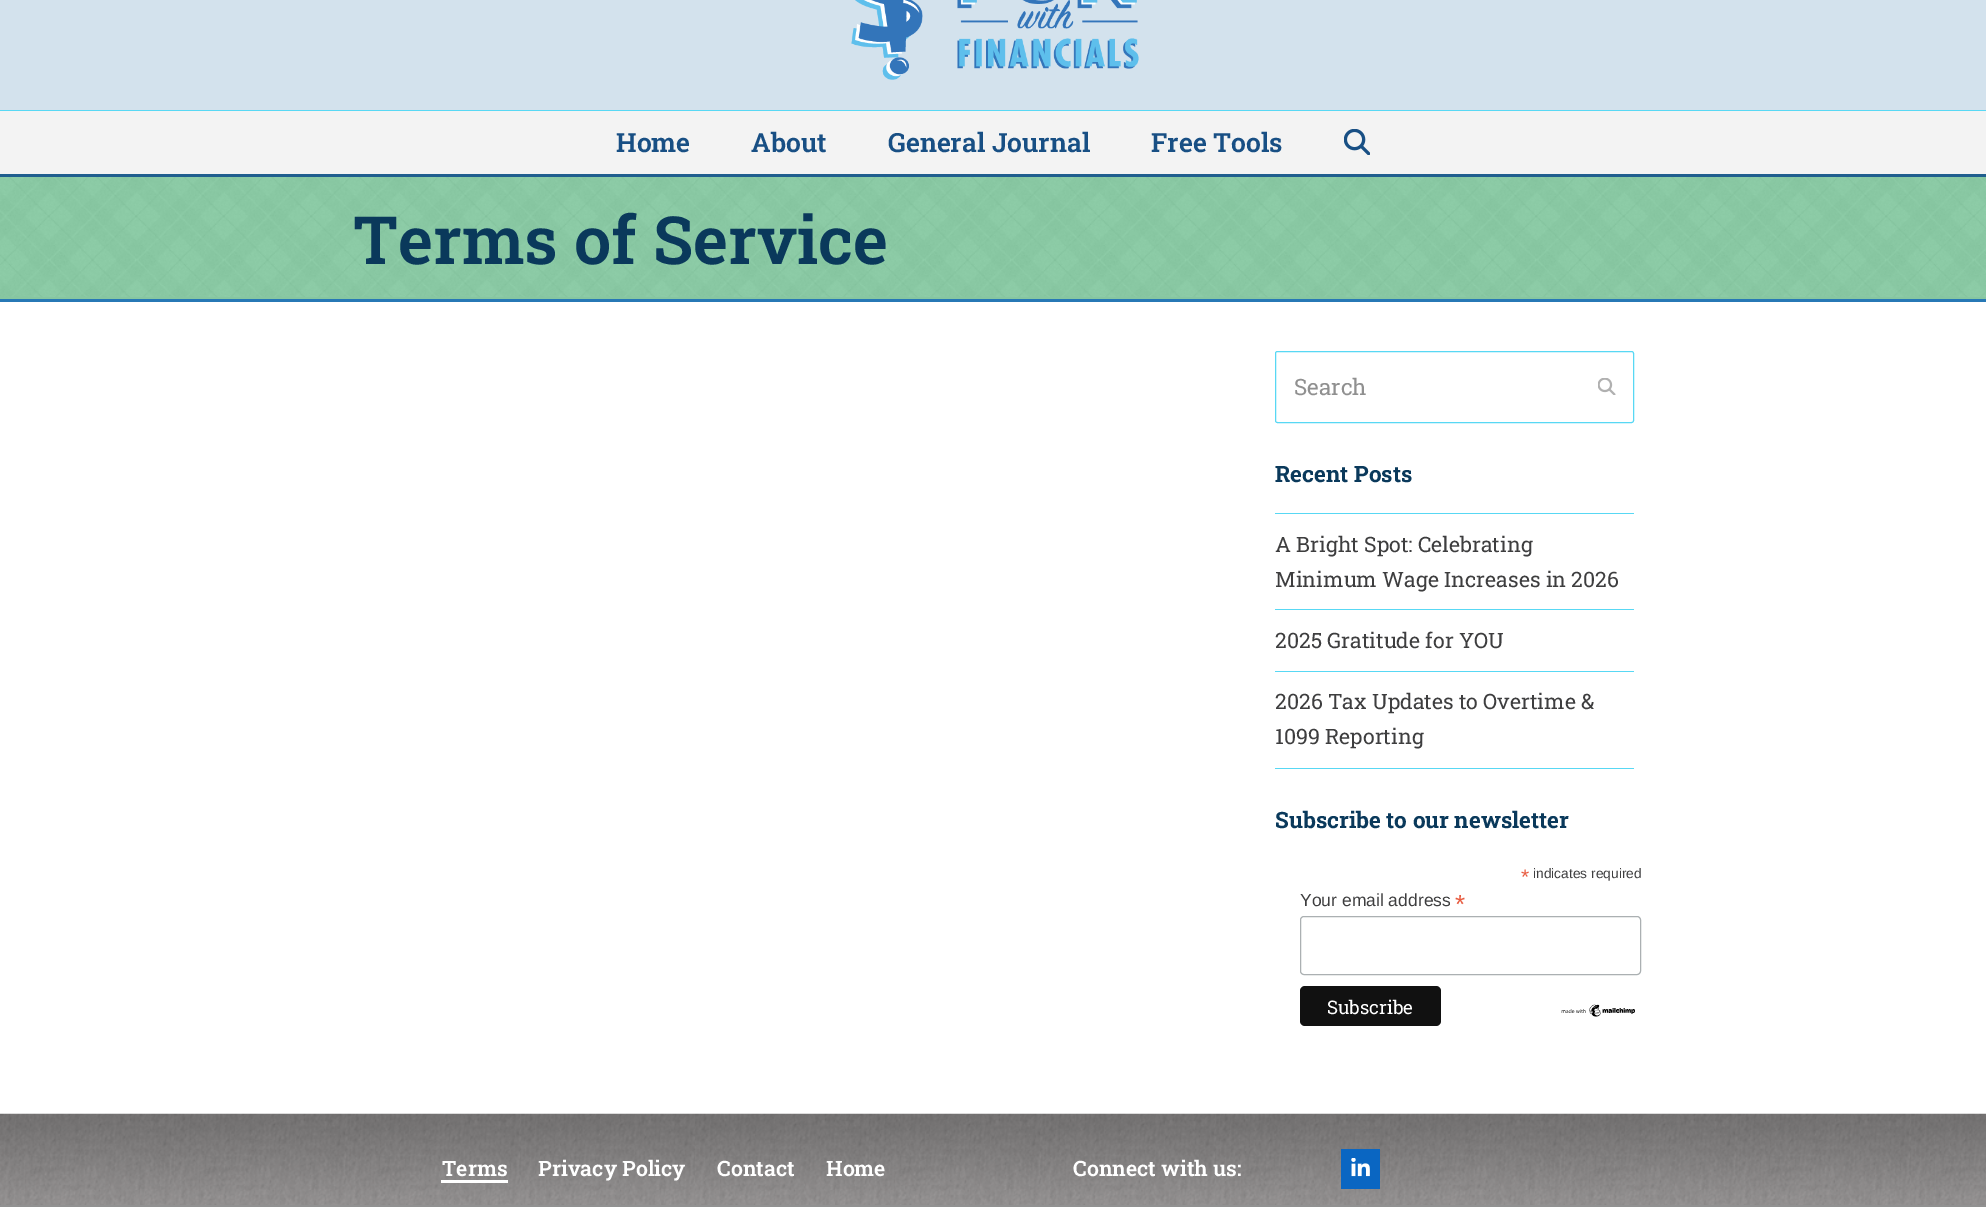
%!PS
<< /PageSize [1986 1207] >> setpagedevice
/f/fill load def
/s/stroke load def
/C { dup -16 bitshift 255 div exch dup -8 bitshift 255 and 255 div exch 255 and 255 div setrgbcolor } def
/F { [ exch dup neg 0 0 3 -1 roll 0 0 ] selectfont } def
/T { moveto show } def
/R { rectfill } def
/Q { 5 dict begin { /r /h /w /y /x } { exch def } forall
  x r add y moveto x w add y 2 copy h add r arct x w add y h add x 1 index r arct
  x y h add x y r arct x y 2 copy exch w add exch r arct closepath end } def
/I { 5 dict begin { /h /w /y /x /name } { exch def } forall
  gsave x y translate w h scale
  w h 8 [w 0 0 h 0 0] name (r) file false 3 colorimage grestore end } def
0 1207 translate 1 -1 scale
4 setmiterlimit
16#FFFFFF C
0 0 1986 1207 R
16#D3E2ED C
0 0 1986 110 R
(1.rgb) 851 0 288 80 I
16#F3F3F3 C
0 111 1986 63 R
16#58D8F4 C
0 110 1986 1 R
/RobotoSlab-SemiBold 26.5 F
16#184F84 C
(Home) 616 152 T
(About) 751 152 T
(General Journal) 888 152 T
(Free Tools) 1151 152 T
(2.rgb) 1344 129 26 26 I
16#87C6A1 C
0 297 1986 2 R
(3.rgb) 0 177 1986 120 I
16#1F5E8E C
0 174 1986 3 R
16#2778B5 C
0 299 1986 3 R
/RobotoSlab-SemiBold 66.5 F
16#0A395B C
(Terms of Service) 353 264 T
16#58D8F4 C
1275.5 351.5 358 71 2 Q s
/RobotoSlab-Regular 22.5 F
16#909090 C
(Search) 1294 395 T
(4.rgb) 1598 378 18 17 I
/RobotoSlab-Bold 22.5 F
16#0A395B C
(Recent Posts) 1275 482 T
16#58D8F4 C
1275 513 359 1 R
1275 609 359 1 R
/RobotoSlab-Regular 21.25 F
16#3E3E3F C
(A Bright Spot: Celebrating) 1275 552 T
(Minimum Wage Increases in 2026) 1275 587 T
16#58D8F4 C
1275 671 359 1 R
16#3E3E3F C
(2025 Gratitude for YOU) 1275 648 T
16#58D8F4 C
1275 768 359 1 R
16#3E3E3F C
(2026 Tax Updates to Overtime &) 1275 709 T
(1099 Reporting) 1275 744 T
/RobotoSlab-Bold 22.5 F
16#0A395B C
(Subscribe to our newsletter) 1275 828 T
/LiberationSans-Regular 21 F
16#E85C41 C
(*) 1521 884 T
/LiberationSans-Regular 13.75 F
16#3E3E3F C
(indicates required) 1533 878 T
/LiberationSans-Regular 17.5 F
(Your email address) 1300 906 T
/LiberationSans-Regular 26 F
16#E85C41 C
(*) 1455 913 T
16#ABB0B2 C
1300.5 916.5 340 58 3.5 Q s
16#111111 C
1300 986 141 40 5 Q f
/RobotoSlab-Regular 18.75 F
16#FFFFFF C
(Subscribe) 1327 1014 T
(5.rgb) 1561 1004 74 13 I
(6.rgb) 0 1113 1986 92 I
/RobotoSlab-SemiBold 21.25 F
(Terms) 442 1176 T
441 1180 67 3 R
(Privacy Policy) 538 1176 T
(Contact) 717 1176 T
(Home) 826 1176 T
(Connect with us:) 1073 1176 T
16#0A66C2 C
1341 1149 39 40 R
(7.rgb) 1351 1158 19 19 I
16#919191 C
0 1205 1986 2 R
showpage
